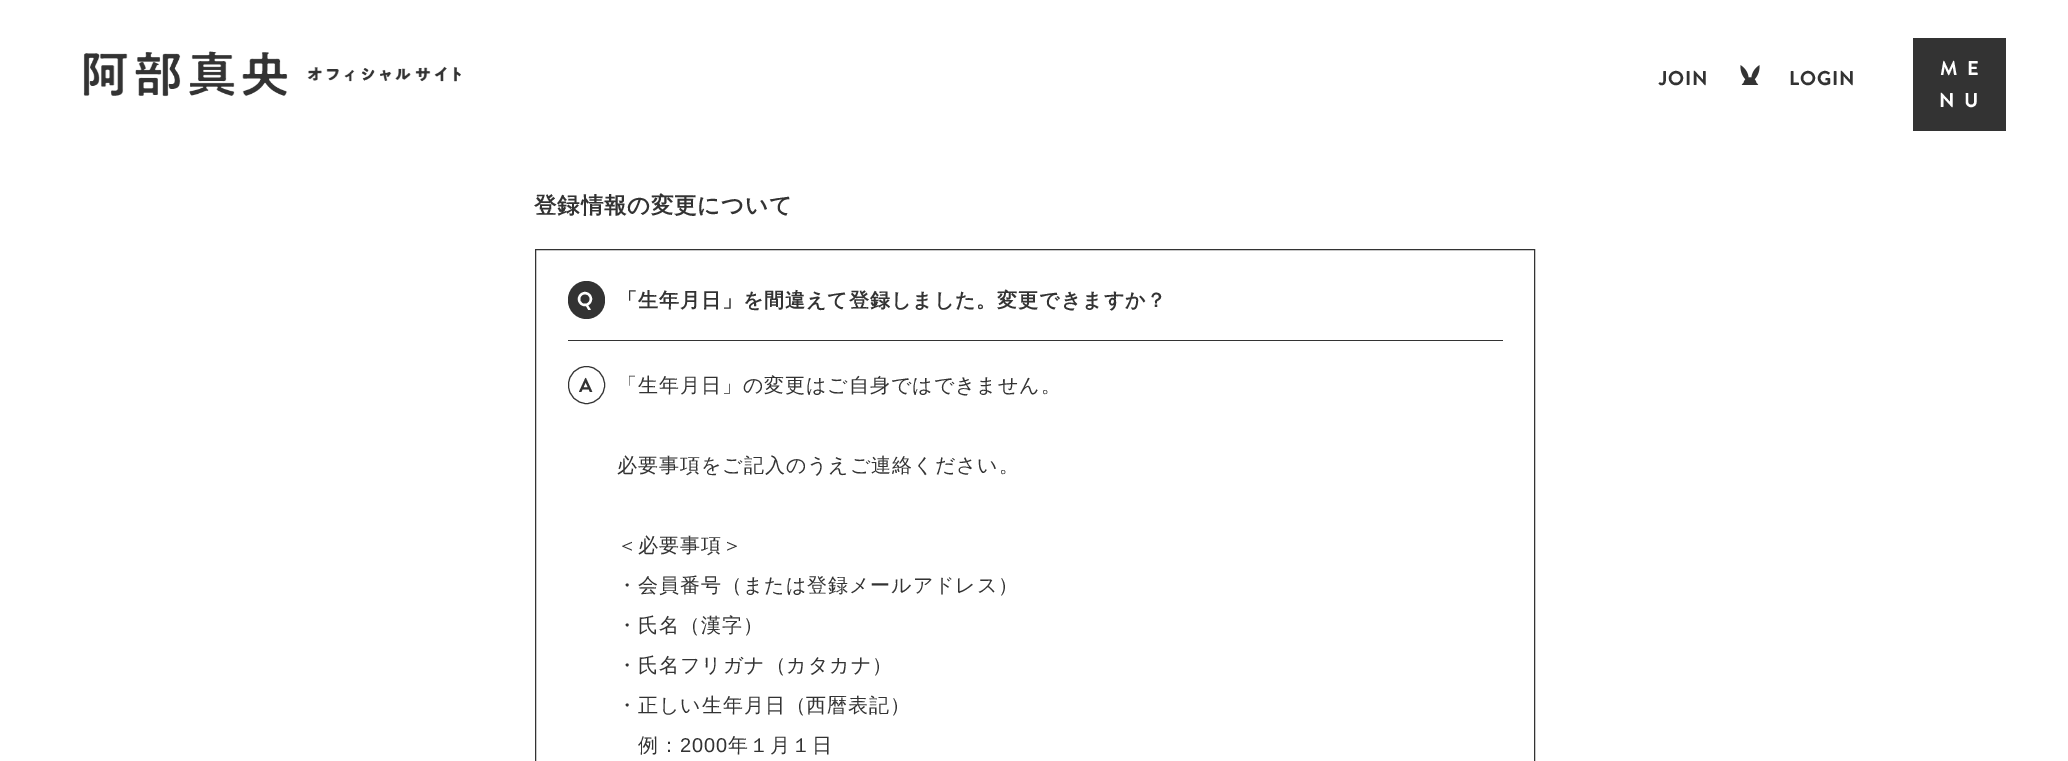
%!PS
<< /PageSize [2068 761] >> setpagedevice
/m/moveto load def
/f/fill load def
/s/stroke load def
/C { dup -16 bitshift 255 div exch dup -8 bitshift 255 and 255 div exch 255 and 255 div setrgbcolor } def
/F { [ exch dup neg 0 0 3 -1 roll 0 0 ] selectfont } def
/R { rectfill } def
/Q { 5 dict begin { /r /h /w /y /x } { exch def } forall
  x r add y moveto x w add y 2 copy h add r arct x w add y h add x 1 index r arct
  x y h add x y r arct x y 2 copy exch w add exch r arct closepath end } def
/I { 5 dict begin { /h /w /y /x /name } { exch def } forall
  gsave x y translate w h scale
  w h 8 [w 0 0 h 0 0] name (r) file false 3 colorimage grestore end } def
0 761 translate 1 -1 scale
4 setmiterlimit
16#FFFFFF C
0 0 2068 761 R
(1.rgb) 83 51 378 46 I
/BrandonGrotesque-Bold 20 F
16#333333 C
1659 85 m .95 0 (JOIN) ashow
(2.rgb) 1740 65 20 20 I
1789 85 m .95 0 (LOGIN) ashow
1913 38 93 93 R
16#FFFFFF C
1940 75 m 10 0 (ME) ashow
1939 107 m 10 0 (NU) ashow
/WenQuanYiZenHei-Bold 22.5 F
16#333333 C
534 213 m .75 0 (登録情報の変更について) ashow
535.5 249.5 999 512 rectstroke
568 340 935 1 R
568 281 37 38 18.5 Q f
/BrandonGrotesque-Bold 20 F
16#FFFFFF C
577 306 m .95 0 (Q) ashow
/WenQuanYiZenHei-Bold 20 F
16#333333 C
617 307 m .95 0 (「生年月日」を間違えて登録しました。変更できますか？) ashow
568.5 366.5 36 37 18 Q s
/BrandonGrotesque-Bold 20 F
579 392 m .95 0 (A) ashow
/WenQuanYiZenHei-Medium 20 F
617 392 m .95 0 (「生年月日」の変更はご自身ではできません。) ashow
617 472 m .95 0 (必要事項をご記入のうえご連絡ください。) ashow
617 552 m .95 0 (＜必要事項＞) ashow
617 592 m .95 0 (・会員番号（または登録メールアドレス）) ashow
617 632 m .95 0 (・氏名（漢字）) ashow
617 672 m .95 0 (・氏名フリガナ（カタカナ）) ashow
617 712 m .95 0 (・正しい生年月日（西暦表記）) ashow
638 752 m .95 0 (例：) ashow
/LiberationSans-Regular 20 F
680 752 m .95 0 (2000) ashow
/WenQuanYiZenHei-Medium 20 F
728 752 m .95 0 (年１月１日) ashow
showpage
